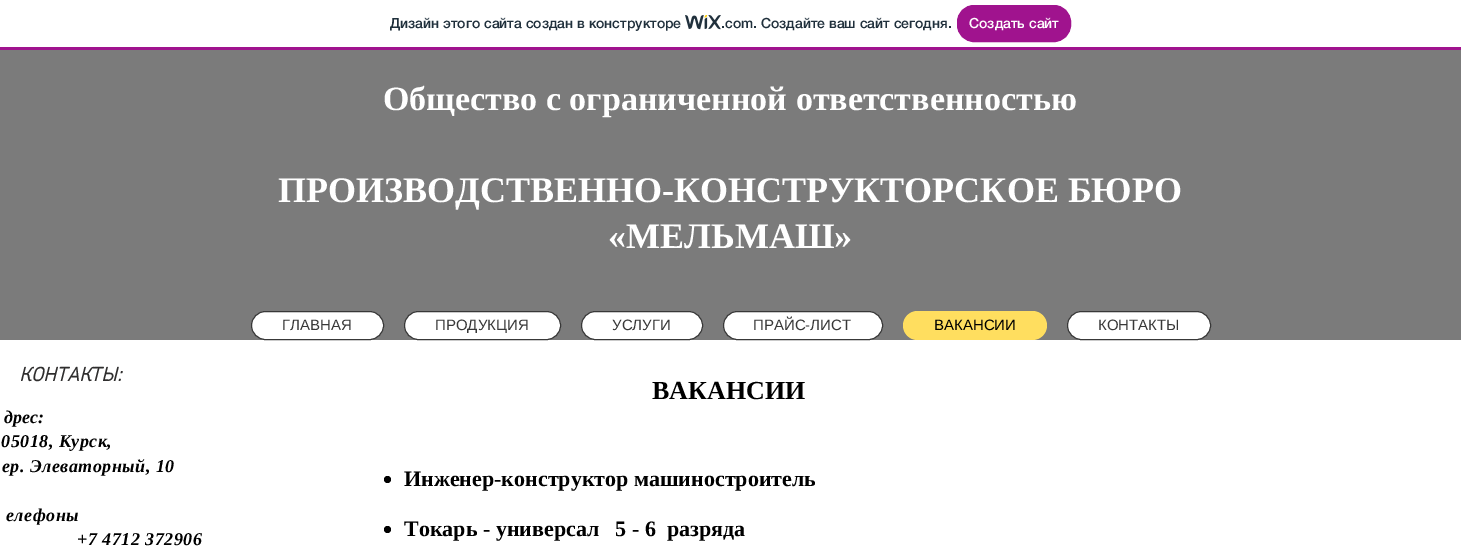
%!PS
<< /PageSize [1461 552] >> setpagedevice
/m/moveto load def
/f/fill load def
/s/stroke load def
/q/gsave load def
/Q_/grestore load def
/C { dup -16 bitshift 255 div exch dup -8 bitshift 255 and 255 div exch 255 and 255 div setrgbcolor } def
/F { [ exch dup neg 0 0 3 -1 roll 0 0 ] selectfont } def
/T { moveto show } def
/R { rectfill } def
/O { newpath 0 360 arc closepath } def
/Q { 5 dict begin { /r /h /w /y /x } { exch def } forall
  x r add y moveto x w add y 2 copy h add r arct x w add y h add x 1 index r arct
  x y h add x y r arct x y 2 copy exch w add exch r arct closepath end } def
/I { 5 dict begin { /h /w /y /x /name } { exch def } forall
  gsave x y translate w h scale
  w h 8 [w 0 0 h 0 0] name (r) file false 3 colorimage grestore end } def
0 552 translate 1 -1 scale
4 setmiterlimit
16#FFFFFF C
0 0 1461 552 R
16#A0138E C
0 47 1461 3 R
/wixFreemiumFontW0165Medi-Medium 14 F
16#20303C C
(Дизайн этого сайта создан в конструкторе) 390 28 T
(1.rgb) 685 15 36 15 I
/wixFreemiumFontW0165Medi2-Medium 14 F
(.com) 721 28 T
/wixFreemiumFontW0165Medi-Medium 14 F
(. Создайте ваш сайт сегодня.) 753 28 T
16#A0138E C
957.5 5.5 113 36 16.5 Q q f Q_
s
16#FFFFFF C
(Создать сайт) 969 28 T
16#7B7B7B C
0 50 1461 290 R
/LiberationSerif-Bold 34 F
16#FFFFFF C
(Общество с ограниченной ответственностью) 383 110 T
/LiberationSerif-Bold 36 F
(ПРОИЗВОДСТВЕННО-КОНСТРУКТОРСКОЕ БЮРО) 278 202 T
(«МЕЛЬМАШ») 608 248 T
251.5 311.5 132 28 14 Q q f Q_
16#383838 C
s
/LiberationSans-Regular 15 F
(ГЛАВНАЯ) 282 330 T
16#FFFFFF C
404.5 311.5 156 28 14 Q q f Q_
16#383838 C
s
(ПРОДУКЦИЯ) 435 330 T
16#FFFFFF C
581.5 311.5 121 28 14 Q q f Q_
16#383838 C
s
(УСЛУГИ) 612 330 T
16#FFFFFF C
723.5 311.5 159 28 14 Q q f Q_
16#383838 C
s
(ПРАЙС-ЛИСТ) 753 330 T
16#FFDE5F C
903 311 144 29 14.5 Q f
16#000000 C
(ВАКАНСИИ) 934 330 T
16#FFFFFF C
1067.5 311.5 143 28 14 Q q f Q_
16#383838 C
s
(КОНТАКТЫ) 1098 330 T
/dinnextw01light-BoldItalic 20 F
16#2F2E2E C
(КОНТАКТЫ:) 19 381 T
/LiberationSerif-BoldItalic 18 F
16#000000 C
(дрес:) 4 423 T
1 447 m .5 0 (05018, Курск,) ashow
2 472 m .5 0 (ер. Элеваторный, 10) ashow
6 521 m .5 0 (елефоны) ashow
77 545 m .5 0 (+7 4712 372906) ashow
/LiberationSerif-Bold 26 F
(ВАКАНСИИ) 652 399 T
387.5 479.5 3.5 O f
/LiberationSerif-Bold 22 F
(Инженер-конструктор машиностроитель) 404 486 T
387.5 529.5 3.5 O f
(Токарь - универсал   5 - 6  разряда) 404 536 T
showpage
